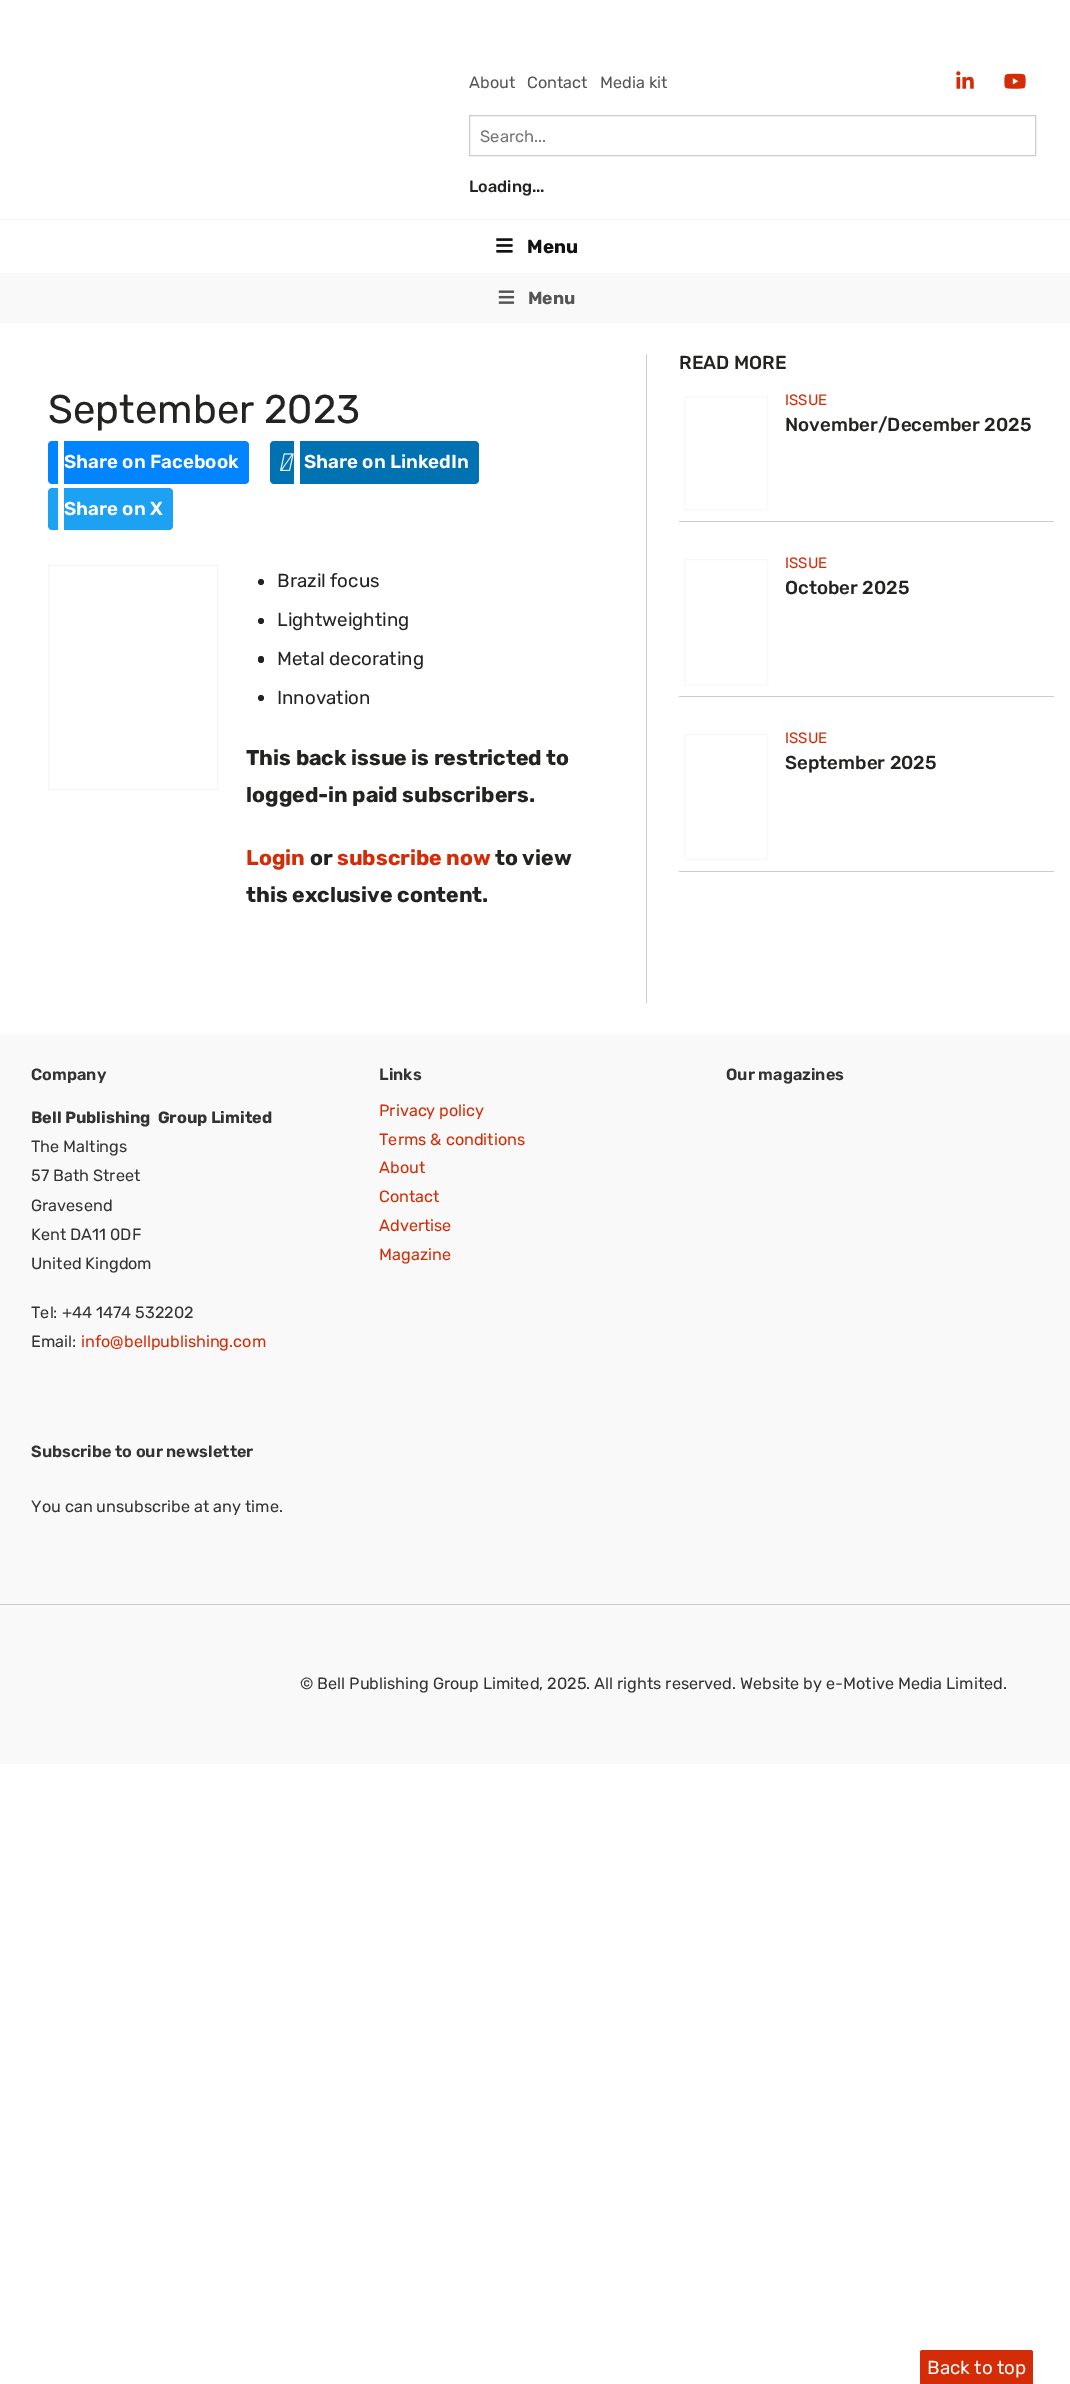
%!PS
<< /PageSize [1070 2384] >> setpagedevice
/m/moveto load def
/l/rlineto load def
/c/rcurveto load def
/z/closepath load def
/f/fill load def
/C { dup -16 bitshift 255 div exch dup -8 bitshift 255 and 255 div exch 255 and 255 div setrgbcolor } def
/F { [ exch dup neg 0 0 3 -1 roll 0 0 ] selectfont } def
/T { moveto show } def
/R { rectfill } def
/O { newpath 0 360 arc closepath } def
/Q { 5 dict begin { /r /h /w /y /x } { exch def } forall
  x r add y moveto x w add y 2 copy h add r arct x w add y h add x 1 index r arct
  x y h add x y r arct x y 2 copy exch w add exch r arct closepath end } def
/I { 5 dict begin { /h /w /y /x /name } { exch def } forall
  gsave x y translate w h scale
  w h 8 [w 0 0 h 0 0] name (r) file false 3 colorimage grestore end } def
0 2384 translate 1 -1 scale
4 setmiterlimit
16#FFFFFF C
0 0 1070 2384 R
/Rubik-Regular 16.25 F
16#555555 C
(About) 469 88 T
(Contact) 527 88 T
(Media kit) 600 88 T
(1.rgb) 956 71 18 18 I
(2.rgb) 1004 73 22 16 I
16#CCCCCC C
469.5 115.5 566 40 rectstroke
/Rubik-Regular 16.5 F
16#757575 C
(Search...) 480 142 T
/Rubik-Medium 16.25 F
16#232321 C
(Loading...) 469 192 T
16#F5F5F5 C
0 219 1070 1 R
(3.rgb) 496 238 17 15 I
/Rubik-Bold 18.75 F
16#111111 C
(Menu) 527 253 T
16#F9F9F9 C
0 273 1070 50 R
(4.rgb) 498 290 17 14 I
/Rubik-Bold 17.5 F
16#555555 C
(Menu) 528 304 T
16#CCCCCC C
646 354 1 649 R
/Rubik-Regular 40 F
16#232321 C
(September 2023) 48 423 T
16#0084FF C
64 441 m 181 0 l 2 0 4 2 4 4 c 0 35 l 0 2 -2 4 -4 4 c -181 0 l z f
/Rubik-SemiBold 18.75 F
16#FFFFFF C
(Share on Facebook) 64 468 T
16#0084FF C
52 441 m 6 0 l 0 43 l -6 0 l -2 0 -4 -2 -4 -4 c 0 -35 l 0 -2 2 -4 4 -4 c z f
16#0072B1 C
274 441 m 20 0 l 0 43 l -20 0 l -2 0 -4 -2 -4 -4 c 0 -35 l 0 -2 2 -4 4 -4 c z f
(5.rgb) 280 453 14 18 I
300 441 m 175 0 l 2 0 4 2 4 4 c 0 35 l 0 2 -2 4 -4 4 c -175 0 l z f
16#FFFFFF C
(Share on LinkedIn) 304 468 T
16#1DA1F2 C
64 488 m 105 0 l 2 0 4 2 4 4 c 0 34 l 0 2 -2 4 -4 4 c -105 0 l z f
16#FFFFFF C
(Share on X) 64 515 T
16#1DA1F2 C
52 488 m 6 0 l 0 42 l -6 0 l -2 0 -4 -2 -4 -4 c 0 -34 l 0 -2 2 -4 4 -4 c z f
16#F5F5F5 C
48.5 565.5 169 224 rectstroke
16#232321 C
261 582 3 O f
/Rubik-Regular 18.75 F
(Brazil focus) 277 587 T
261 621 3 O f
(Lightweighting) 277 626 T
258 656 6 7 3 Q f
(Metal decorating) 277 665 T
261 698 3 O f
(Innovation) 277 704 T
/Rubik-Bold 21.25 F
(This back issue is restricted to) 246 765 T
(logged-in paid subscribers.) 246 802 T
16#D32C06 C
(Login) 246 865 T
16#232321 C
(or) 310 865 T
16#D32C06 C
(subscribe now) 337 865 T
16#232321 C
(to view) 495 865 T
(this exclusive content.) 246 902 T
/Rubik-Medium 18.75 F
(READ MORE) 679 369 T
16#CCCCCC C
679 521 375 1 R
16#F8F8F8 C
684.5 396.5 83 113 rectstroke
/Rubik-Regular 15 F
16#D32C06 C
(ISSUE) 785 405 T
/Rubik-Medium 18.75 F
16#232321 C
(November/December 2025) 785 431 T
16#CCCCCC C
679 696 375 1 R
16#F8F8F8 C
684.5 559.5 83 125 rectstroke
/Rubik-Regular 15 F
16#D32C06 C
(ISSUE) 785 568 T
/Rubik-Medium 18.75 F
16#232321 C
(October 2025) 785 594 T
16#CCCCCC C
679 871 375 1 R
16#F8F8F8 C
684.5 734.5 83 125 rectstroke
/Rubik-Regular 15 F
16#D32C06 C
(ISSUE) 785 743 T
/Rubik-Medium 18.75 F
16#232321 C
(September 2025) 785 769 T
16#F9F9F9 C
0 1034 1070 730 R
/Rubik-SemiBold 16.25 F
16#333333 C
(Company) 31 1080 T
/Rubik-Bold 16.25 F
(Bell Publishing  Group Limited) 31 1123 T
/Rubik-Regular 16.25 F
(The Maltings) 31 1152 T
(57 Bath Street) 31 1181 T
(Gravesend) 31 1211 T
(Kent DA11 0DF) 31 1240 T
(United Kingdom) 31 1269 T
(Tel: +44 1474 532202) 31 1318 T
(Email:) 31 1347 T
16#D32C06 C
(info@bellpublishing.com) 81 1347 T
/Rubik-SemiBold 16.25 F
16#333333 C
(Links) 379 1080 T
/Rubik-Regular 16.25 F
16#D32C06 C
(Privacy policy) 379 1116 T
(Terms & conditions) 379 1145 T
(About) 379 1173 T
(Contact) 379 1202 T
(Advertise) 379 1231 T
(Magazine) 379 1260 T
/Rubik-SemiBold 16.25 F
16#333333 C
(Our magazines) 726 1080 T
(Subscribe to our newsletter) 31 1457 T
/Rubik-Regular 16.25 F
(You can unsubscribe at any time.) 31 1512 T
16#CCCCCC C
0 1604 1070 1 R
16#333333 C
(© Bell Publishing Group Limited, 2025. All rights reserved. Website by e-Motive Media Limited.) 300 1689 T
16#D32C06 C
920 2350 113 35 2.5 Q f
/Rubik-Regular 18.75 F
16#FFFFFF C
(Back to top) 927 2374 T
showpage
